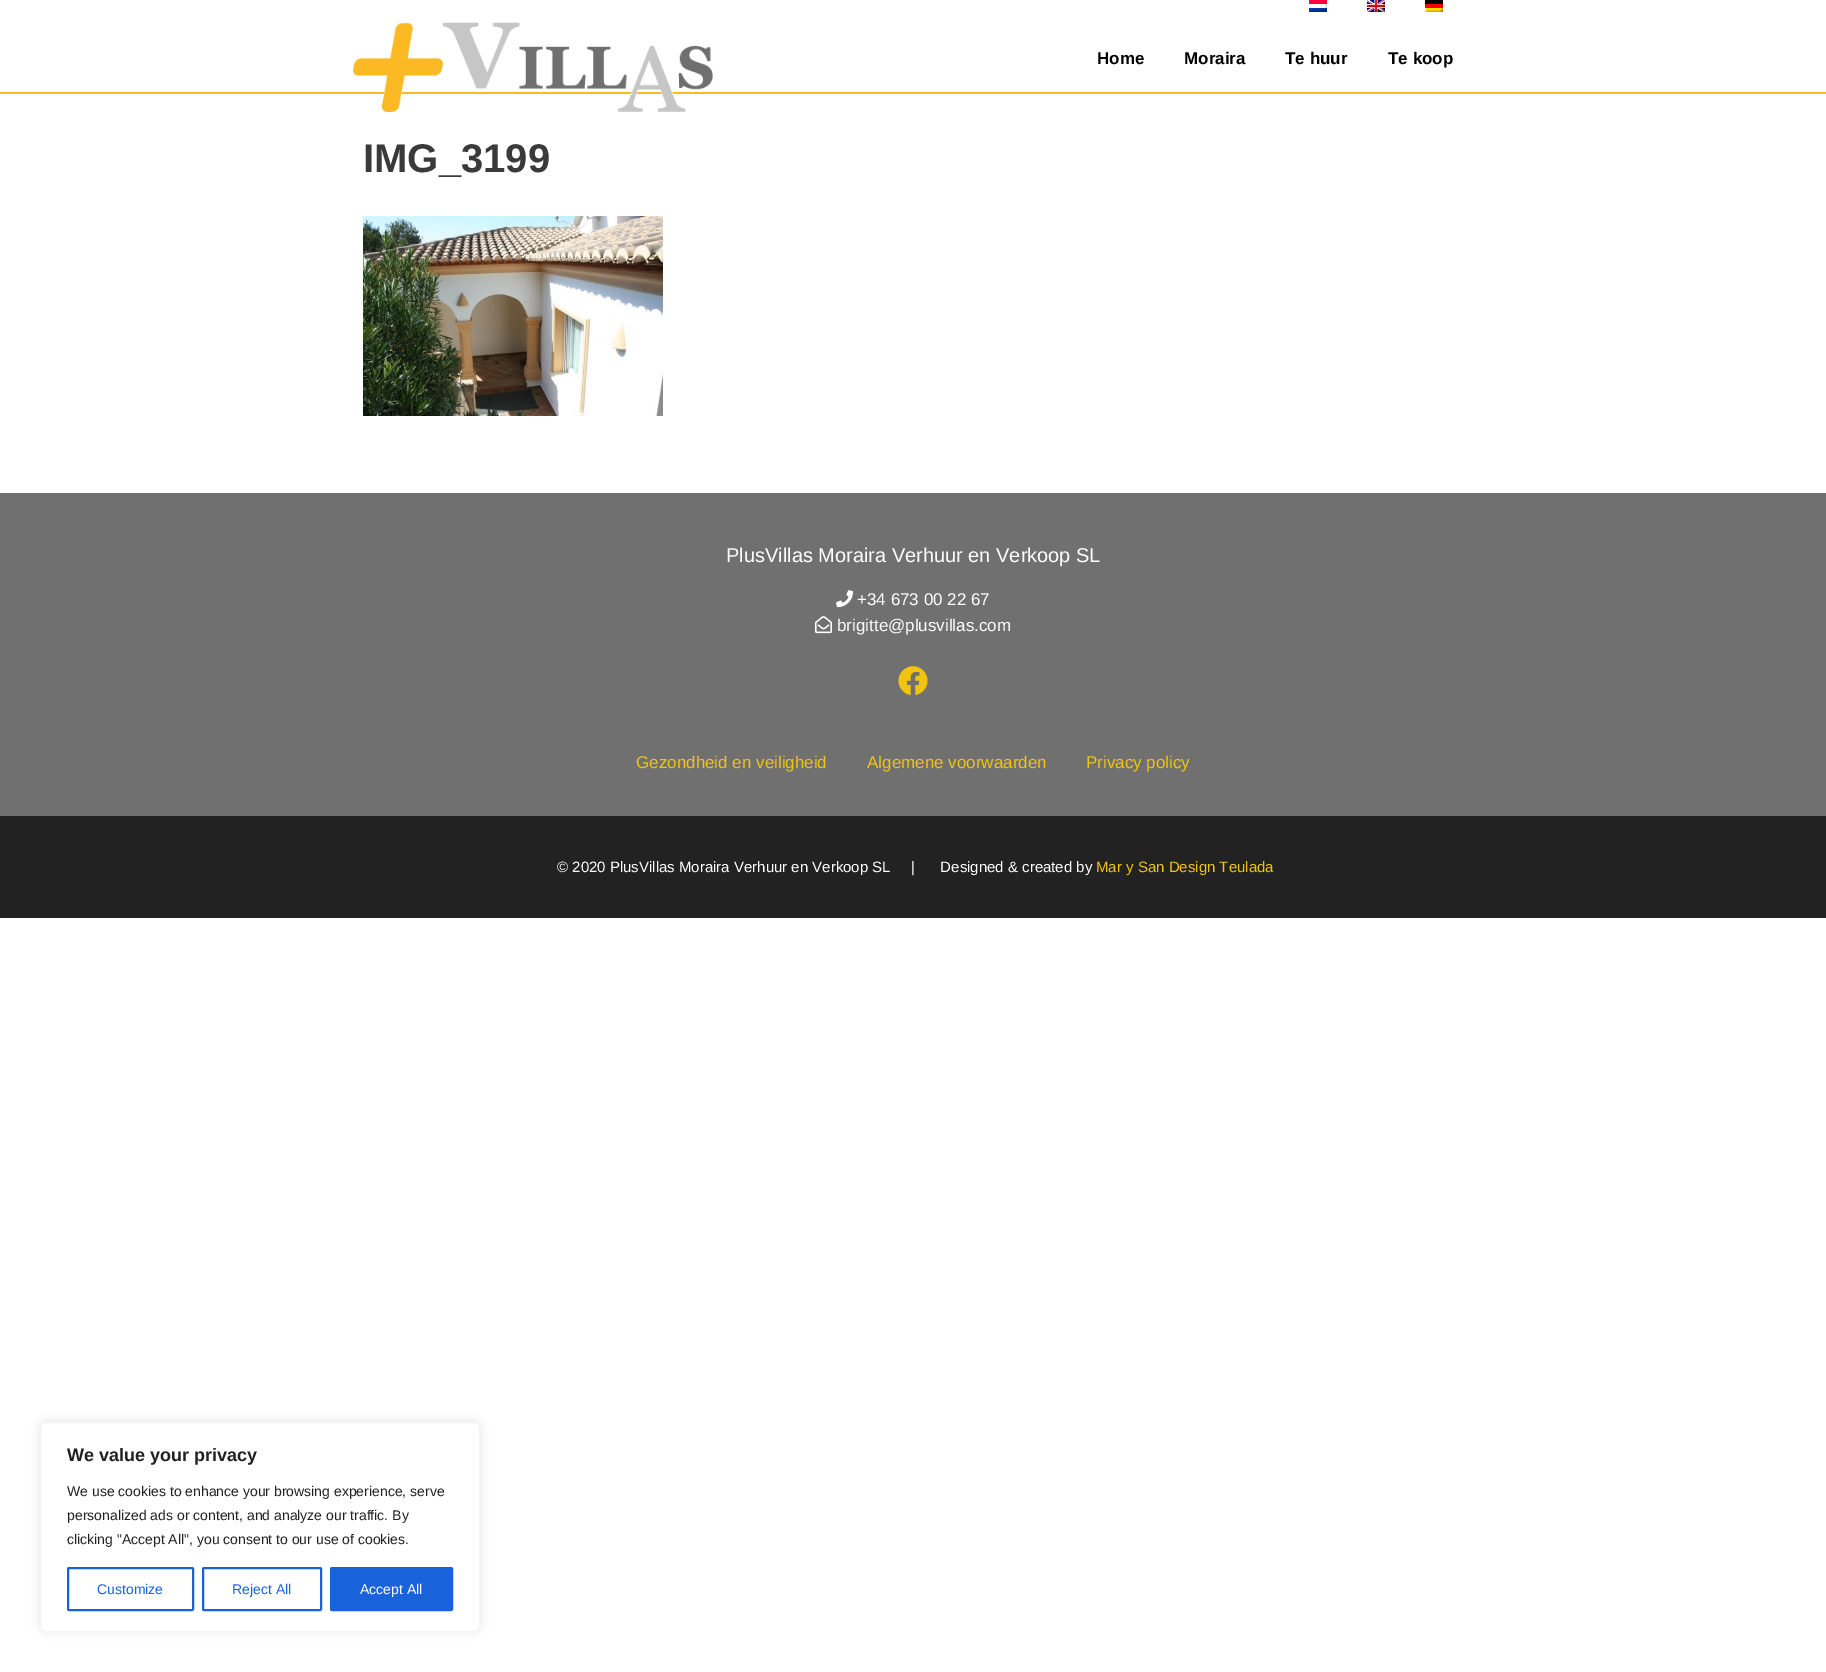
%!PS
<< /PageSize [1826 1672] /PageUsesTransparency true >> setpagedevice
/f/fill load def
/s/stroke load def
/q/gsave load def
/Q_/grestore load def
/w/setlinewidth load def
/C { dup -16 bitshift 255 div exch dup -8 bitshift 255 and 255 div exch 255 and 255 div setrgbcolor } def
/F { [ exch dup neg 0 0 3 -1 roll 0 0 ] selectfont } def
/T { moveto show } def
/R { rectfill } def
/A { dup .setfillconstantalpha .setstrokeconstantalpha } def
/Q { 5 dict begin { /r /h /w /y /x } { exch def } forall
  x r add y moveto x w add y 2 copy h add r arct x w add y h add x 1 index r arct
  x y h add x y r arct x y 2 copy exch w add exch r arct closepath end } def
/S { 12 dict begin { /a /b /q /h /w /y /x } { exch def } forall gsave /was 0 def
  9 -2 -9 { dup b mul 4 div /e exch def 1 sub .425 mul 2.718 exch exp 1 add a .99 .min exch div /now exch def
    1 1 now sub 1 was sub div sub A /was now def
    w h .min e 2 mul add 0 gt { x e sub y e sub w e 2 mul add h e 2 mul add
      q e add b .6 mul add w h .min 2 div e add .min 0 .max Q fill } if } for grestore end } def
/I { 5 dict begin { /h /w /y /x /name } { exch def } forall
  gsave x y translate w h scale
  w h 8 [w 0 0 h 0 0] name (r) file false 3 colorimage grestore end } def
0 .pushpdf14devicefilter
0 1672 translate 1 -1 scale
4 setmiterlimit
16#FFFFFF C
0 0 1826 1672 R
(1.rgb) 1309 0 18 12 I
(2.rgb) 1367 0 18 12 I
(3.rgb) 1425 0 18 12 I
16#FBBA20 C
0 92 1826 2 R
(4.rgb) 353 22 360 90 I
/LiberationSans-Bold 17 F
16#000000 C
(Home) 1097 64 T
(Moraira) 1184 64 T
(Te huur) 1285 64 T
(Te koop) 1388 64 T
/LiberationSans-Bold 40 F
16#3A3A3A C
(IMG_3199) 363 172 T
(5.rgb) 363 216 300 200 I
16#707070 C
0 493 1826 323 R
/LiberationSans-Regular 20 F
16#FFFFFF C
(PlusVillas Moraira Verhuur en Verkoop SL) 726 562 T
(6.rgb) 836 590 17 18 I
/LiberationSans-Regular 17 F
(+34 673 00 22 67) 857 605 T
(7.rgb) 815 616 17 18 I
(brigitte@plusvillas.com) 837 631 T
(8.rgb) 898 666 30 29 I
16#F1C40F C
(Gezondheid en veiligheid) 636 768 T
(Algemene voorwaarden) 867 768 T
(Privacy policy) 1086 768 T
16#222222 C
0 816 1826 102 R
/LiberationSans-Regular 15 F
16#FFFFFF C
(© 2020 PlusVillas Moraira Verhuur en Verkoop SL     |      Designed & created by) 557 872 T
16#F1C40F C
(Mar y San Design Teulada) 1096 872 T
16#ACABAB C
40 1421 440 210 6 5 .3 S
16#FFFFFF C
40.5 1422.5 439 209 5.5 Q q f Q_
16#F4F4F4 C
s
/LiberationSans-Bold 18 F
16#212121 C
(We value your privacy) 67 1461 T
/LiberationSans-Regular 14 F
(We use cookies to enhance your browsing experience, serve) 67 1496 T
(personalized ads or content, and analyze our traffic. By) 67 1520 T
(clicking "Accept All", you consent to our use of cookies.) 67 1544 T
16#1863DC C
2 w
68 1568 125 42 1 Q s
(Customize) 97 1594 T
203 1568 118 42 1 Q s
(Reject All) 232 1594 T
331 1568 121 42 1 Q q f Q_
s
16#FFFFFF C
(Accept All) 360 1594 T
.poppdf14devicefilter showpage
